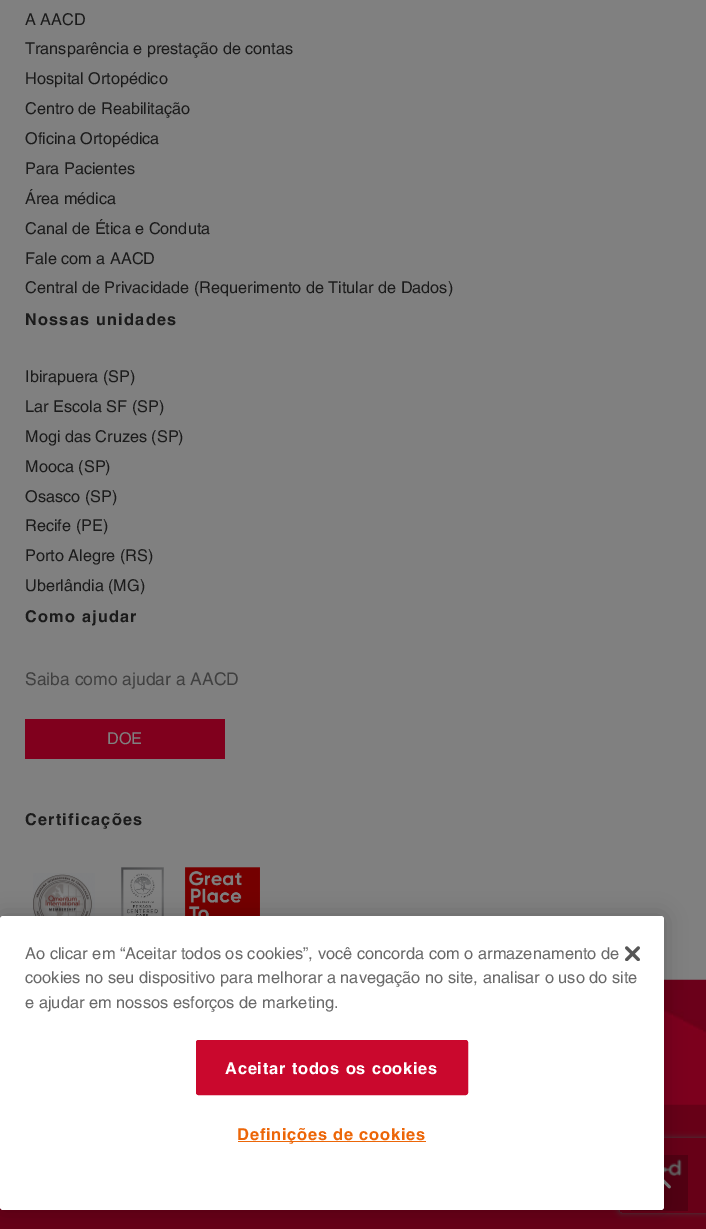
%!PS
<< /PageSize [706 1229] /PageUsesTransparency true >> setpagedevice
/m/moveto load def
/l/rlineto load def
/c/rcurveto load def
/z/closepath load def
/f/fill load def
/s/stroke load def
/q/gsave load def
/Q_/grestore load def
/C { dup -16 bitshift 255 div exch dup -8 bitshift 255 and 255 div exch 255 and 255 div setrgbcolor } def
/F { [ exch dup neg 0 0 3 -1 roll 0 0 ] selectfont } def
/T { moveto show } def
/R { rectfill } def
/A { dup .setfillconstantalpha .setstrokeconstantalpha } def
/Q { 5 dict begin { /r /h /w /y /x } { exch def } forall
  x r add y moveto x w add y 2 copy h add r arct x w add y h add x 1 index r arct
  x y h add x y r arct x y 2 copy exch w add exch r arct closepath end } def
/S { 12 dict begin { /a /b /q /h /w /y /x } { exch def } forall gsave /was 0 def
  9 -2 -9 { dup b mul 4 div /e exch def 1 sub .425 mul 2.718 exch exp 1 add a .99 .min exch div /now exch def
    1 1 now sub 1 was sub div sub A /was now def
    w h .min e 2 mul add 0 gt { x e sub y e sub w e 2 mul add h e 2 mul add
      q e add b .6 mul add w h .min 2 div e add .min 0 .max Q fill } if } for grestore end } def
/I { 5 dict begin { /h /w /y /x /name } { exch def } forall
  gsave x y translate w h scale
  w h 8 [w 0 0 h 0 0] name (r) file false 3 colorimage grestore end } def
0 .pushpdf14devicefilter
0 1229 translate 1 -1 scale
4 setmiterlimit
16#808080 C
0 0 706 1229 R
/Helvetica-Medium 16.25 F
16#1B1B1B C
(A AACD) 25 25 T
(Transparência e prestação de contas) 25 54 T
(Hospital Ortopédico) 25 84 T
(Centro de Reabilitação) 25 114 T
(Oficina Ortopédica) 25 144 T
(Para Pacientes) 25 174 T
(Área médica) 25 204 T
(Canal de Ética e Conduta) 25 234 T
(Fale com a AACD) 25 264 T
(Central de Privacidade \(Requerimento de Titular de Dados\)) 25 293 T
/Helvetica-Bold 16.25 F
25 325 m 1.25 0 (Nossas unidades) ashow
/Helvetica-Medium 16.25 F
(Ibirapuera \(SP\)) 25 382 T
(Lar Escola SF \(SP\)) 25 412 T
(Mogi das Cruzes \(SP\)) 25 442 T
(Mooca \(SP\)) 25 472 T
(Osasco \(SP\)) 25 502 T
(Recife \(PE\)) 25 531 T
(Porto Alegre \(RS\)) 25 561 T
(Uberlândia \(MG\)) 25 591 T
/Helvetica-Bold 16.25 F
25 622 m 1.25 0 (Como ajudar) ashow
/Helvetica-Medium 17.5 F
16#404040 C
(Saiba como ajudar a AACD) 25 685 T
16#80001D C
25 719 200 40 R
/Helvetica-Medium 16.25 F
16#808080 C
(DOE) 107 744 T
/Helvetica-Bold 16.25 F
16#1B1B1B C
25 825 m 1.25 0 (Certificações) ashow
(1.rgb) 33 873 62 43 I
(2.rgb) 121 867 43 49 I
(3.rgb) 185 867 75 49 I
16#670017 C
0 1104 706 125 R
(4.rgb) 664 979 42 126 I
(5.rgb) 664 1159 18 17 I
q
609 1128 m 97 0 l 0 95 l -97 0 l z 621.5 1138 m 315 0 l 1.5 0 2.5 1 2.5 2.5 c 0 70 l 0 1.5 -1 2.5 -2.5 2.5 c -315 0 l -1.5 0 -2.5 -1 -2.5 -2.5 c 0 -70 l 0 -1.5 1 -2.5 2.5 -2.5 c z eoclip newpath
16#404040 C
619 1138 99 75 2.5 3 1 S
Q_
0.2 A
16#000000 C
631 1155 57 56 R
1 A
(7.rgb) 664 1179 7 10 I
0 916 664 294 3 11 .2 S
16#FFFFFF C
0 916 664 294 3 Q f
/Helvetica-Medium 16.4 F
16#696969 C
(Ao clicar em “Aceitar todos os cookies”, você concorda com o armazenamento de) 25 959 T
(cookies no seu dispositivo para melhorar a navegação no site, analisar o uso do site) 25 983 T
(e ajudar em nossos esforços de marketing.) 25 1008 T
(6.rgb) 625 946 15 15 I
16#CA082D C
196.5 1040.5 271 54 2 Q q f Q_
s
/Helvetica-Bold 16.4 F
16#FFFFFF C
225 1074 m .8 0 (Aceitar todos os cookies) ashow
16#EC6608 C
238 1141 188 1 R
237 1140 m .8 0 (Definições de cookies) ashow
.poppdf14devicefilter showpage
